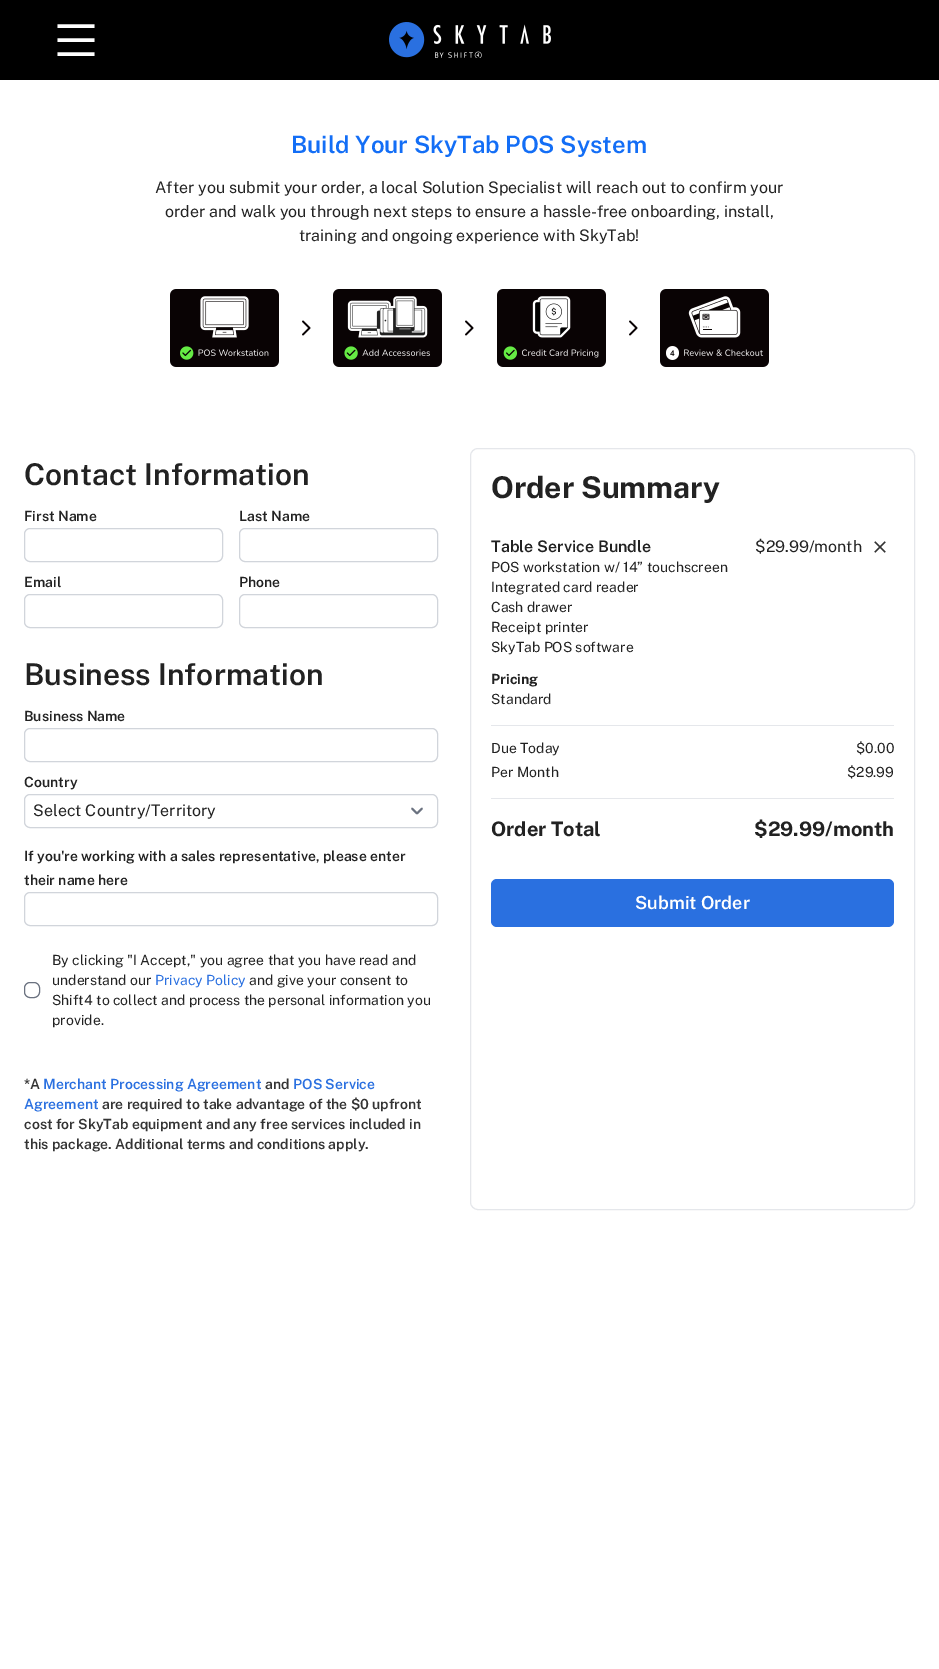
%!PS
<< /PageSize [939 1669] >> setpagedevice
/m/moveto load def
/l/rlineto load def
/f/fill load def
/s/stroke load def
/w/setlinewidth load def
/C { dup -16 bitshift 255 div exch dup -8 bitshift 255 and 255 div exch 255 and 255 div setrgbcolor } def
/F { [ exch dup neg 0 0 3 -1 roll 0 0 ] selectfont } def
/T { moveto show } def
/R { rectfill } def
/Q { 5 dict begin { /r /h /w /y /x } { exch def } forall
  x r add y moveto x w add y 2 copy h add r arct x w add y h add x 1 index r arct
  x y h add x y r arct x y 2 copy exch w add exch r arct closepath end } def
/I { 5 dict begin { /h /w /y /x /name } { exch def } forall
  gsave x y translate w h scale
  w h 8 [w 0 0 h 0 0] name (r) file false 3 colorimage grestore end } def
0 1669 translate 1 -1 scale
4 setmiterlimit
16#FFFFFF C
0 0 939 1669 R
16#000000 C
0 0 939 80 R
16#FFFFFF C
3.5 w
57.5 26 m 37 0 l 57.5 40 m 37 0 l 57.5 54 m 37 0 l s
(1.rgb) 389 22 162 36 I
/PublicSans-SemiBold 24 F
16#136EF6 C
(Build Your SkyTab POS System) 291 153 T
/PublicSans-Regular 16 F
16#222222 C
(After you submit your order, a local Solution Specialist will reach out to confirm your) 155 193 T
(order and walk you through next steps to ensure a hassle-free onboarding, install,) 165 217 T
(training and ongoing experience with SkyTab!) 299 241 T
(2.rgb) 170 289 109 78 I
(3.rgb) 302 320 9 16 I
(4.rgb) 333 289 109 78 I
(3.rgb) 465 320 9 16 I
(5.rgb) 497 289 109 78 I
(3.rgb) 629 320 9 16 I
(6.rgb) 660 289 109 78 I
/PublicSans-SemiBold 30 F
(Contact Information) 24 485 T
/PublicSans-SemiBold 14 F
(First Name) 24 521 T
16#D1D5DB C
1 w
24.5 528.5 198 33 5.5 Q s
16#222222 C
(Last Name) 239 521 T
16#D1D5DB C
239.5 528.5 198 33 5.5 Q s
16#222222 C
(Email) 24 587 T
16#D1D5DB C
24.5 594.5 198 33 5.5 Q s
16#222222 C
(Phone) 239 587 T
16#D1D5DB C
239.5 594.5 198 33 5.5 Q s
/PublicSans-SemiBold 30 F
16#222222 C
(Business Information) 24 685 T
/PublicSans-SemiBold 14 F
(Business Name) 24 721 T
16#D1D5DB C
24.5 728.5 413 33 5.5 Q s
16#222222 C
(Country) 24 787 T
16#6B7280 C
1.8 w
1 setlinecap
1 setlinejoin
412 808.5 m 5 5 l 5 -5 l s
16#D1D5DB C
1 w
0 setlinecap
0 setlinejoin
24.5 794.5 413 33 5.5 Q s
/PublicSans-Regular 16 F
16#222222 C
(Select Country/Territory) 33 816 T
/PublicSans-SemiBold 14 F
(If you're working with a sales representative, please enter) 24 861 T
(their name here) 24 885 T
16#D1D5DB C
24.5 892.5 413 33 5.5 Q s
16#6B7280 C
24.5 982.5 15 15 5.5 Q s
/PublicSans-Regular 14 F
16#222222 C
(By clicking "I Accept," you agree that you have read and) 52 965 T
(understand our) 52 985 T
16#2A70E0 C
(Privacy Policy) 155 985 T
16#222222 C
(and give your consent to) 249 985 T
(Shift4 to collect and process the personal information you) 52 1005 T
(provide.) 52 1025 T
/PublicSans-SemiBold 14 F
16#333333 C
(*A) 24 1089 T
16#2A70E0 C
(Merchant Processing Agreement) 43 1089 T
16#333333 C
(and) 265 1089 T
16#2A70E0 C
(POS Service) 293 1089 T
(Agreement) 24 1109 T
16#333333 C
(are required to take advantage of the $0 upfront) 102 1109 T
(cost for SkyTab equipment and any free services included in) 24 1129 T
(this package. Additional terms and conditions apply.) 24 1149 T
16#E5E7EB C
470.5 448.5 444 761 7.5 Q s
/PublicSans-Bold 30 F
16#222222 C
(Order Summary) 491 498 T
/PublicSans-SemiBold 16 F
(Table Service Bundle) 491 552 T
/PublicSans-Regular 14 F
(POS workstation w/ 14” touchscreen) 491 572 T
(Integrated card reader) 491 592 T
(Cash drawer) 491 612 T
(Receipt printer) 491 632 T
(SkyTab POS software) 491 652 T
/PublicSans-Regular 16 F
($29.99/month) 755 552 T
(7.rgb) 874 541 12 12 I
/PublicSans-Bold 14 F
(Pricing) 491 684 T
/PublicSans-Regular 14 F
(Standard) 491 704 T
16#E5E7EB C
491 725 403 1 R
491 798 403 1 R
16#222222 C
(Due Today) 491 753 T
($0.00) 856 753 T
(Per Month) 491 777 T
($29.99) 847 777 T
/PublicSans-Bold 20 F
(Order Total) 491 836 T
($29.99/month) 754 836 T
16#2A70E0 C
491 879 403 48 6 Q f
/PublicSans-SemiBold 18 F
16#FFFFFF C
(Submit Order) 635 909 T
showpage
